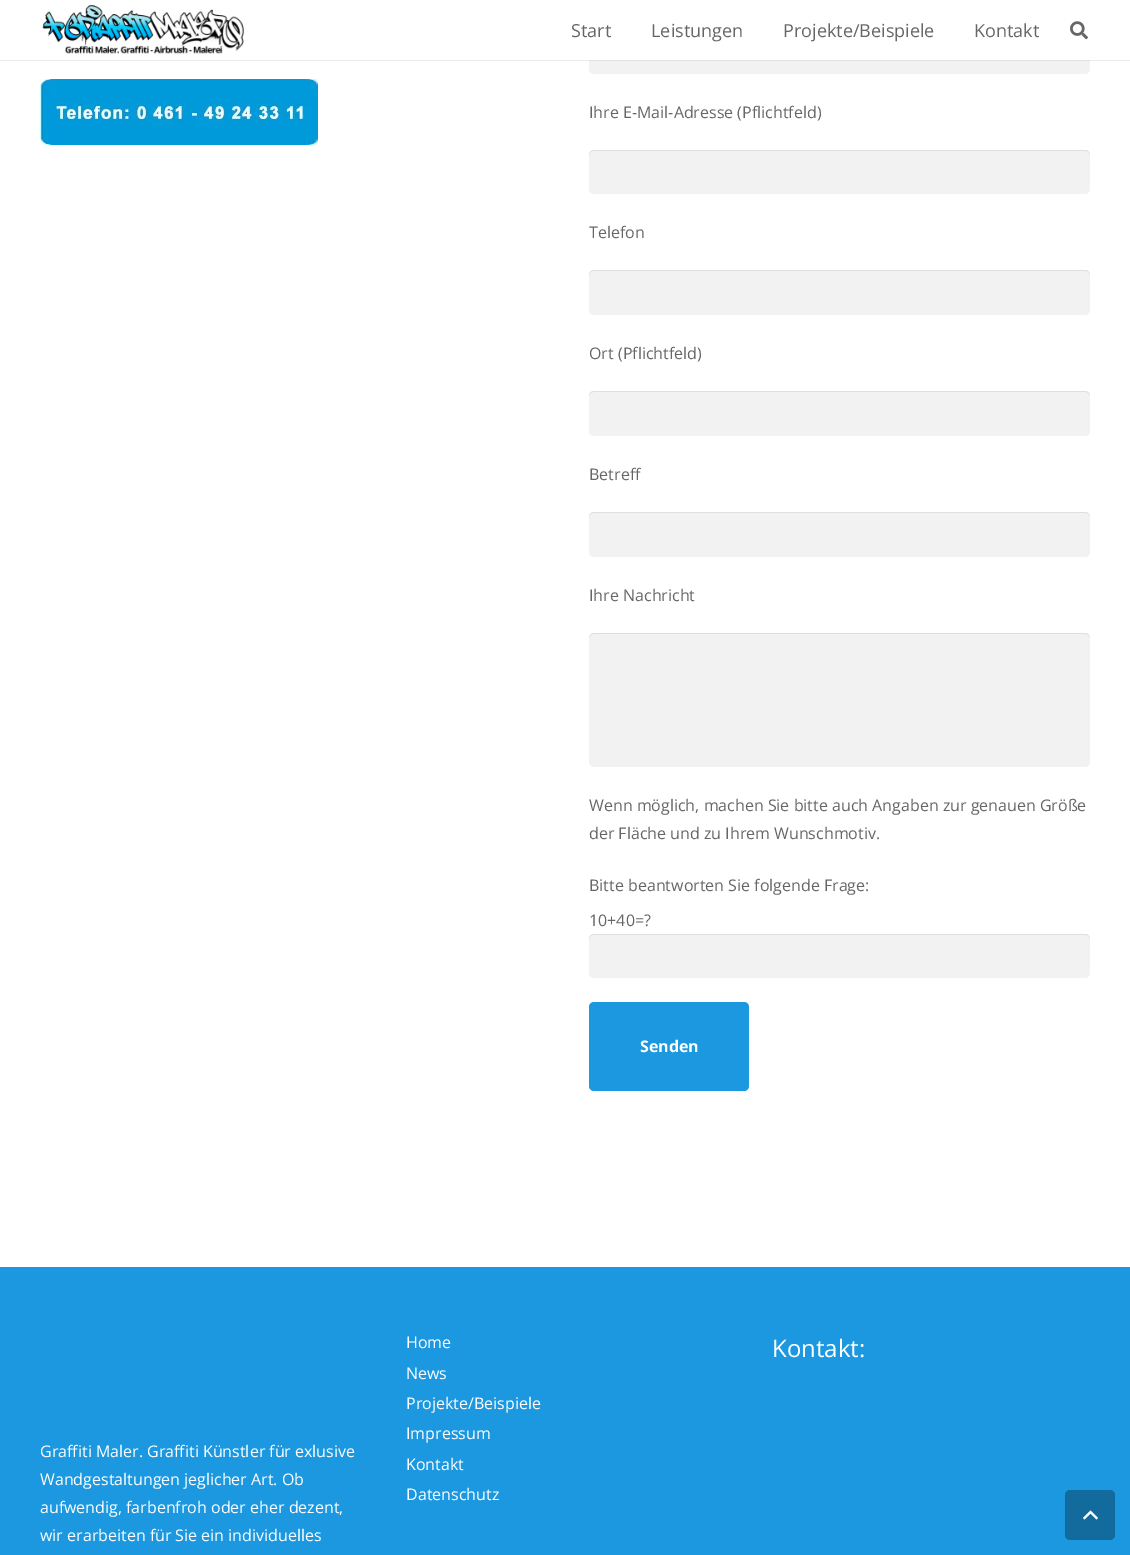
%!PS
<< /PageSize [1130 1555] /PageUsesTransparency true >> setpagedevice
/m/moveto load def
/l/rlineto load def
/c/rcurveto load def
/z/closepath load def
/f/fill load def
/C { dup -16 bitshift 255 div exch dup -8 bitshift 255 and 255 div exch 255 and 255 div setrgbcolor } def
/F { [ exch dup neg 0 0 3 -1 roll 0 0 ] selectfont } def
/T { moveto show } def
/R { rectfill } def
/A { dup .setfillconstantalpha .setstrokeconstantalpha } def
/Q { 5 dict begin { /r /h /w /y /x } { exch def } forall
  x r add y moveto x w add y 2 copy h add r arct x w add y h add x 1 index r arct
  x y h add x y r arct x y 2 copy exch w add exch r arct closepath end } def
/I { 5 dict begin { /h /w /y /x /name } { exch def } forall
  gsave x y translate w h scale
  w h 8 [w 0 0 h 0 0] name (r) file false 3 colorimage grestore end } def
0 .pushpdf14devicefilter
0 1555 translate 1 -1 scale
4 setmiterlimit
16#FFFFFF C
0 0 1130 1555 R
16#EBEBEB C
0 60 1130 1 R
16#F2F2F2 C
589 29 501 45 5 Q f
16#FFFFFF C
589 29 501 31 R
(1.rgb) 42 5 202 49 I
/OpenSans-Regular 18 F
16#666666 C
(Start) 571 37 T
(Leistungen) 651 37 T
(Projekte/Beispiele) 783 37 T
(Kontakt) 974 37 T
(2.rgb) 1070 21 18 19 I
(3.rgb) 40 79 278 66 I
16#DFDFDF C
589 60 501 1 R
/OpenSans-Regular 16 F
16#666666 C
(Ihre E-Mail-Adresse \(Pflichtfeld\)) 589 118 T
16#F2F2F2 C
589 150 501 44 5 Q f
0.08 A
16#000000 C
594 151 m 491 0 l 3 0 5 2 5 5 c 0 -1 l 0 -3 -2 -5 -5 -5 c -491 0 l -3 0 -5 2 -5 5 c 0 1 l 0 -3 2 -5 5 -5 c z f
1 A
16#666666 C
(Telefon) 589 238 T
16#F2F2F2 C
589 270 501 45 5 Q f
0.08 A
16#000000 C
594 271 m 491 0 l 3 0 5 2 5 5 c 0 -1 l 0 -3 -2 -5 -5 -5 c -491 0 l -3 0 -5 2 -5 5 c 0 1 l 0 -3 2 -5 5 -5 c z f
1 A
16#666666 C
(Ort \(Pflichtfeld\)) 589 359 T
16#F2F2F2 C
589 391 501 45 5 Q f
0.08 A
16#000000 C
594 392 m 491 0 l 3 0 5 2 5 5 c 0 -1 l 0 -3 -2 -5 -5 -5 c -491 0 l -3 0 -5 2 -5 5 c 0 1 l 0 -3 2 -5 5 -5 c z f
1 A
16#666666 C
(Betreff) 589 480 T
16#F2F2F2 C
589 512 501 45 5 Q f
0.08 A
16#000000 C
594 513 m 491 0 l 3 0 5 2 5 5 c 0 -1 l 0 -3 -2 -5 -5 -5 c -491 0 l -3 0 -5 2 -5 5 c 0 1 l 0 -3 2 -5 5 -5 c z f
1 A
16#666666 C
(Ihre Nachricht) 589 601 T
16#F2F2F2 C
589 633 501 134 5 Q f
0.08 A
16#000000 C
594 634 m 491 0 l 3 0 5 2 5 5 c 0 -1 l 0 -3 -2 -5 -5 -5 c -491 0 l -3 0 -5 2 -5 5 c 0 1 l 0 -3 2 -5 5 -5 c z f
1 A
16#666666 C
(Wenn möglich, machen Sie bitte auch Angaben zur genauen Größe) 589 811 T
(der Fläche und zu Ihrem Wunschmotiv.) 589 839 T
(Bitte beantworten Sie folgende Frage:) 589 891 T
(10+40=?) 589 926 T
16#F2F2F2 C
589 934 501 44 5 Q f
0.08 A
16#000000 C
594 935 m 491 0 l 3 0 5 2 5 5 c 0 -1 l 0 -3 -2 -5 -5 -5 c -491 0 l -3 0 -5 2 -5 5 c 0 1 l 0 -3 2 -5 5 -5 c z f
1 A
16#1B98E0 C
589 1002 160 89 5 Q f
/OpenSans-Bold 16 F
16#FFFFFF C
(Senden) 640 1052 T
16#1B98E0 C
0 1267 1130 288 R
/OpenSans-Regular 16 F
16#FFFFFF C
(Home) 406 1348 T
(News) 406 1379 T
(Projekte/Beispiele) 406 1409 T
(Impressum) 406 1439 T
(Kontakt) 406 1470 T
(Datenschutz) 406 1500 T
/OpenSans-Regular 24 F
(Kontakt:) 772 1357 T
/OpenSans-Regular 16 F
(Graffiti Maler. Graffiti Künstler für exlusive) 40 1457 T
(Wandgestaltungen jeglicher Art. Ob) 40 1485 T
(aufwendig, farbenfroh oder eher dezent,) 40 1513 T
(wir erarbeiten für Sie ein individuelles) 40 1541 T
16#136A9D C
1065 1490 50 50 5 Q f
(4.rgb) 1083 1510 15 10 I
.poppdf14devicefilter showpage
